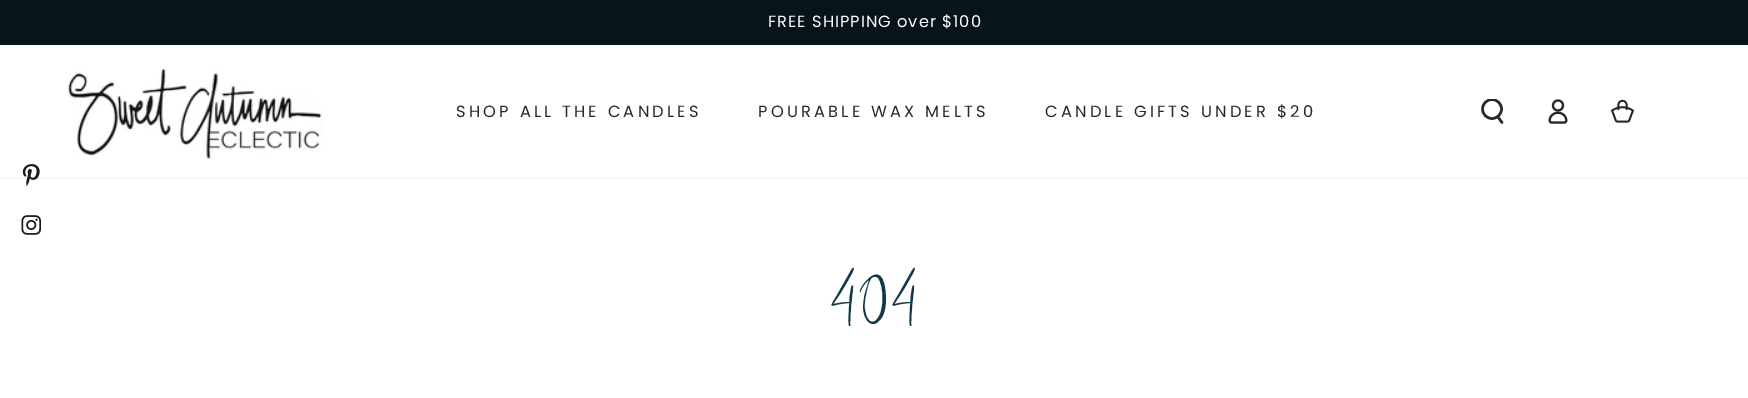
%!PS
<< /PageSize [1748 398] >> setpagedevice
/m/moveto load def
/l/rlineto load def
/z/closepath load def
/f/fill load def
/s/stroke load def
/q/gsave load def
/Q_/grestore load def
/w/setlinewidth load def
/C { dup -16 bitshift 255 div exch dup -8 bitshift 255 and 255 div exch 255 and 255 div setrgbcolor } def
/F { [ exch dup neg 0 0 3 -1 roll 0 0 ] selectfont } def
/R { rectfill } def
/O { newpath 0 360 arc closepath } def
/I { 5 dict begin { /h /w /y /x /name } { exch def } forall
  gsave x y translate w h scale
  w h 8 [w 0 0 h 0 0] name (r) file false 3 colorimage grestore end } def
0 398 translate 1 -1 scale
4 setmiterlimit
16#FFFFFF C
0 0 1748 398 R
16#F2F2F4 C
0 178 m 0 1 l 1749 0 l 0 -133 l 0 132 l z f
(1.rgb) 22 164 18 22 I
(2.rgb) 21 215 21 20 I
16#07141A C
0 0 1748 45 R
/Poppins-Regular 16.25 F
16#FFFFFF C
768 27 m 1 0 (FREE SHIPPING over $100) ashow
(3.rgb) 68 68 255 91 I
16#282828 C
456 117 m 3.25 0 (SHOP ALL THE CANDLES) ashow
758 117 m 3.25 0 (POURABLE WAX MELTS) ashow
1045 117 m 3.25 0 (CANDLE GIFTS UNDER $20) ashow
q
1480 99 25 25 rectclip
2.5 w
1492 109 9.5 O s
Q_
2.5 w
1 setlinecap
1498 117 m 4 5.5 l s
(4.rgb) 1548 99 20 25 I
(5.rgb) 1610 99 25 24 I
/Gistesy-Regular 75 F
16#0F3949 C
830 324 m 1 0 (404) ashow
showpage
